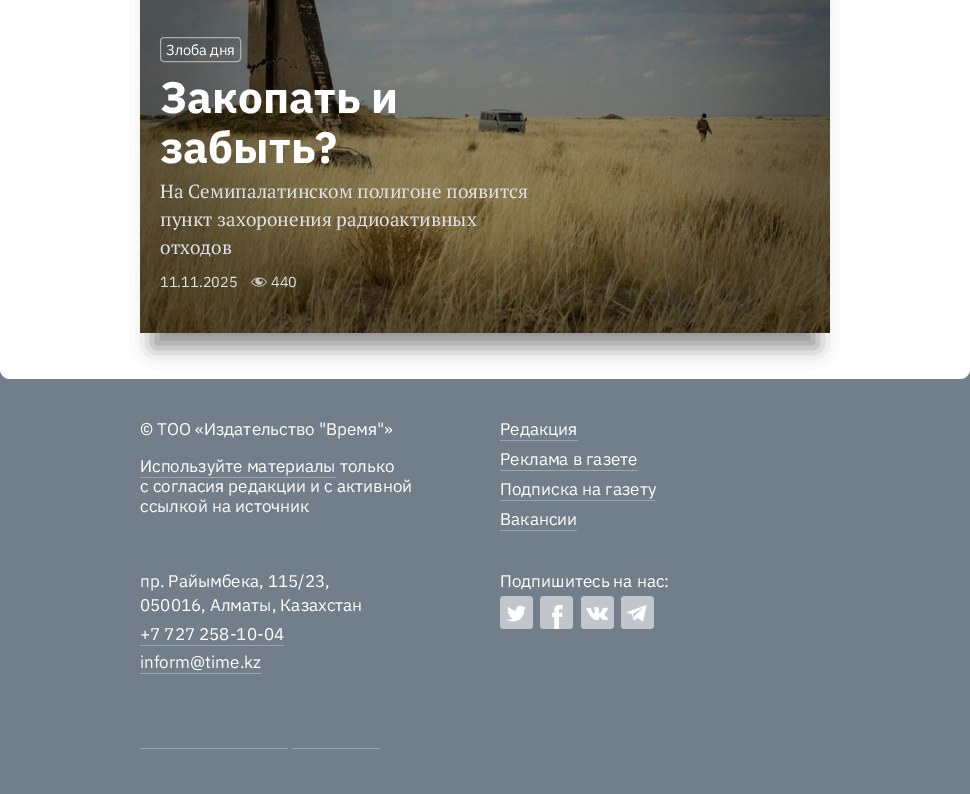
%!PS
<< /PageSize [970 794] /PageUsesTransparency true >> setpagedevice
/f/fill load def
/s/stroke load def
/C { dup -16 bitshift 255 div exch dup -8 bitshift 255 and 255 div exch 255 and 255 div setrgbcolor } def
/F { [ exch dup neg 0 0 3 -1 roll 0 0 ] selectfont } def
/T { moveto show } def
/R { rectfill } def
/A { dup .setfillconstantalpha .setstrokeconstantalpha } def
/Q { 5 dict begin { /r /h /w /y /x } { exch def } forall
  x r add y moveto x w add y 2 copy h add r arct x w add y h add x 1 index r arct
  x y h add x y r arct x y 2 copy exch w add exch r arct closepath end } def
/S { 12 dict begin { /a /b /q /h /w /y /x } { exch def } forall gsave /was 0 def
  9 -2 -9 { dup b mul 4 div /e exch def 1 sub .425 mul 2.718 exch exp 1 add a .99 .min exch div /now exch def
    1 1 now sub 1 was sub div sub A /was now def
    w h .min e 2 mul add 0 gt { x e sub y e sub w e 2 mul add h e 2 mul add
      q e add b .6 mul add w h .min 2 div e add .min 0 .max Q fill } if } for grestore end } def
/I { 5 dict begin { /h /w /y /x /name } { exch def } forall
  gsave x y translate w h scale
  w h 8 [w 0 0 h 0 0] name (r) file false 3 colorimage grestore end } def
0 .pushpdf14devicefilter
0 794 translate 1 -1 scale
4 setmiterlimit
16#727E8A C
0 0 970 794 R
16#FFFFFF C
0 -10 970 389 10 Q f
16#000000 C
152 -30 666 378 0 10 .42 S
(1.rgb) 140 0 690 333 I
0.5 A
16#FFFFFF C
160.5 37.5 80 24 3.5 Q s
/IBMPlexSans-Regular 14.5 F
1 A
(Злоба дня) 166 55 T
/IBMPlexSans-Bold 44 F
(Закопать и) 160 113 T
(забыть?) 160 163 T
/PTSerif-Regular 19 F
16#DEE2E6 C
(На Семипалатинском полигоне появится) 160 198 T
(пункт захоронения радиоактивных) 160 226 T
(отходов) 160 254 T
/IBMPlexSans-Regular 14.5 F
(11.11.2025) 160 287 T
(2.rgb) 251 277 16 10 I
(440) 271 287 T
/IBMPlexSans-Regular 17 F
16#FFFFFF C
(© ТОО «Издательство "Время"») 140 435 T
(Используйте материалы только) 140 472 T
16#9CA5AD C
140 477 196 1 R
16#FFFFFF C
(с согласия редакции и с активной) 140 492 T
(ссылкой на источник) 140 512 T
(Редакция) 500 435 T
16#9CA5AD C
500 440 78 1 R
16#FFFFFF C
(Реклама в газете) 500 465 T
16#9CA5AD C
500 470 138 1 R
16#FFFFFF C
(Подписка на газету) 500 495 T
16#9CA5AD C
500 500 156 1 R
16#FFFFFF C
(Вакансии) 500 525 T
16#9CA5AD C
500 530 77 1 R
16#FFFFFF C
(пр. Райымбека, 115/23,) 140 587 T
(050016, Алматы, Казахстан) 140 611 T
(+7 727 258-10-04) 140 640 T
16#9CA5AD C
140 645 144 1 R
16#FFFFFF C
(inform@time.kz) 140 668 T
16#9CA5AD C
140 673 121 1 R
16#FFFFFF C
(Подпишитесь на нас:) 500 587 T
(3.rgb) 500 596 33 33 I
(4.rgb) 540 596 33 33 I
(5.rgb) 581 596 33 33 I
(6.rgb) 621 596 33 33 I
16#9CA5AD C
140 748 148 1 R
292 748 88 1 R
.poppdf14devicefilter showpage
